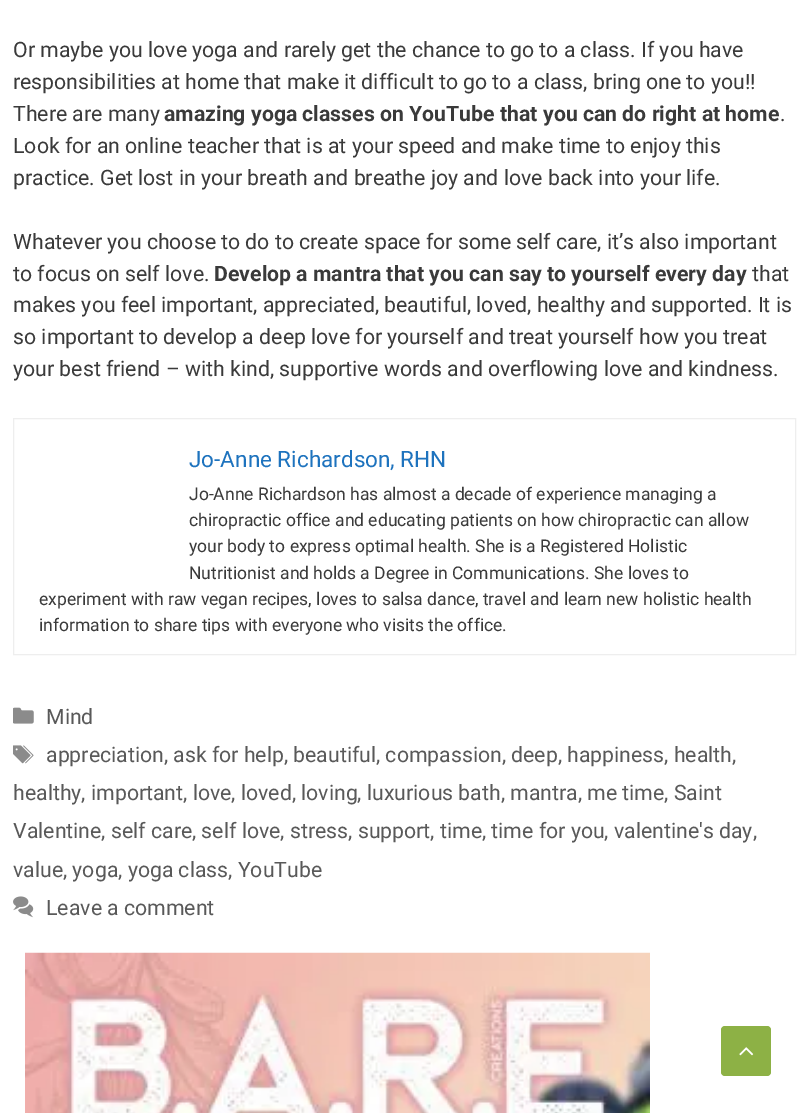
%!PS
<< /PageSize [808 1113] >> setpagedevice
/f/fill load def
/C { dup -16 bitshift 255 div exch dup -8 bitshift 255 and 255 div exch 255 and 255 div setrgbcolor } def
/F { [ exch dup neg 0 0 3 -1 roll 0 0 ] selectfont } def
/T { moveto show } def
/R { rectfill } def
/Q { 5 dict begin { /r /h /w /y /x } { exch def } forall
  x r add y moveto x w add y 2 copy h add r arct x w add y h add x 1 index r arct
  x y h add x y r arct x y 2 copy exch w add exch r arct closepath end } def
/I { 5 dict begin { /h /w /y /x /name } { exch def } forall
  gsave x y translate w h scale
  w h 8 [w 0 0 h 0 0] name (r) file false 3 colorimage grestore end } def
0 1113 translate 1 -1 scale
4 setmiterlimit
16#FFFFFF C
0 0 808 1113 R
/Roboto-Regular 21.25 F
16#3A3A3A C
(Or maybe you love yoga and rarely get the chance to go to a class. If you have) 13 57 T
(responsibilities at home that make it difficult to go to a class, bring one to you!!) 13 89 T
(There are many) 13 121 T
/Roboto-Bold 21.25 F
(amazing yoga classes on YouTube that you can do right at home) 164 121 T
/Roboto-Regular 21.25 F
(.) 780 121 T
(Look for an online teacher that is at your speed and make time to enjoy this) 13 153 T
(practice. Get lost in your breath and breathe joy and love back into your life.) 13 185 T
(Whatever you choose to do to create space for some self care, it’s also important) 13 249 T
(to focus on self love.) 13 281 T
/Roboto-Bold 21.25 F
(Develop a mantra that you can say to yourself every day) 214 281 T
/Roboto-Regular 21.25 F
(that) 752 281 T
(makes you feel important, appreciated, beautiful, loved, healthy and supported. It is) 13 312 T
(so important to develop a deep love for yourself and treat yourself how you treat) 13 344 T
(your best friend – with kind, supportive words and overflowing love and kindness.) 13 376 T
16#EEEEEE C
13.5 418.5 782 236 rectstroke
/Roboto-Regular 22.5 F
16#1E73BE C
(Jo-Anne Richardson, RHN) 189 467 T
/Roboto-Regular 17.5 F
16#3A3A3A C
(Jo-Anne Richardson has almost a decade of experience managing a) 189 500 T
(chiropractic office and educating patients on how chiropractic can allow) 189 526 T
(your body to express optimal health. She is a Registered Holistic) 189 552 T
(Nutritionist and holds a Degree in Communications. She loves to) 189 579 T
(experiment with raw vegan recipes, loves to salsa dance, travel and learn new holistic health) 39 605 T
(information to share tips with everyone who visits the office.) 39 631 T
(1.rgb) 13 707 21 17 I
/Roboto-Regular 21.25 F
16#595959 C
(Mind) 46 724 T
(2.rgb) 13 745 21 19 I
(appreciation, ask for help, beautiful, compassion, deep, happiness, health,) 46 762 T
(healthy, important, love, loved, loving, luxurious bath, mantra, me time, Saint) 13 800 T
(Valentine, self care, self love, stress, support, time, time for you, valentine's day,) 13 838 T
(value, yoga, yoga class, YouTube) 13 877 T
(3.rgb) 13 896 21 22 I
(Leave a comment) 46 915 T
(4.rgb) 25 952 625 161 I
16#8DB145 C
721 1026 50 50 4 Q f
(5.rgb) 739 1047 15 9 I
showpage
